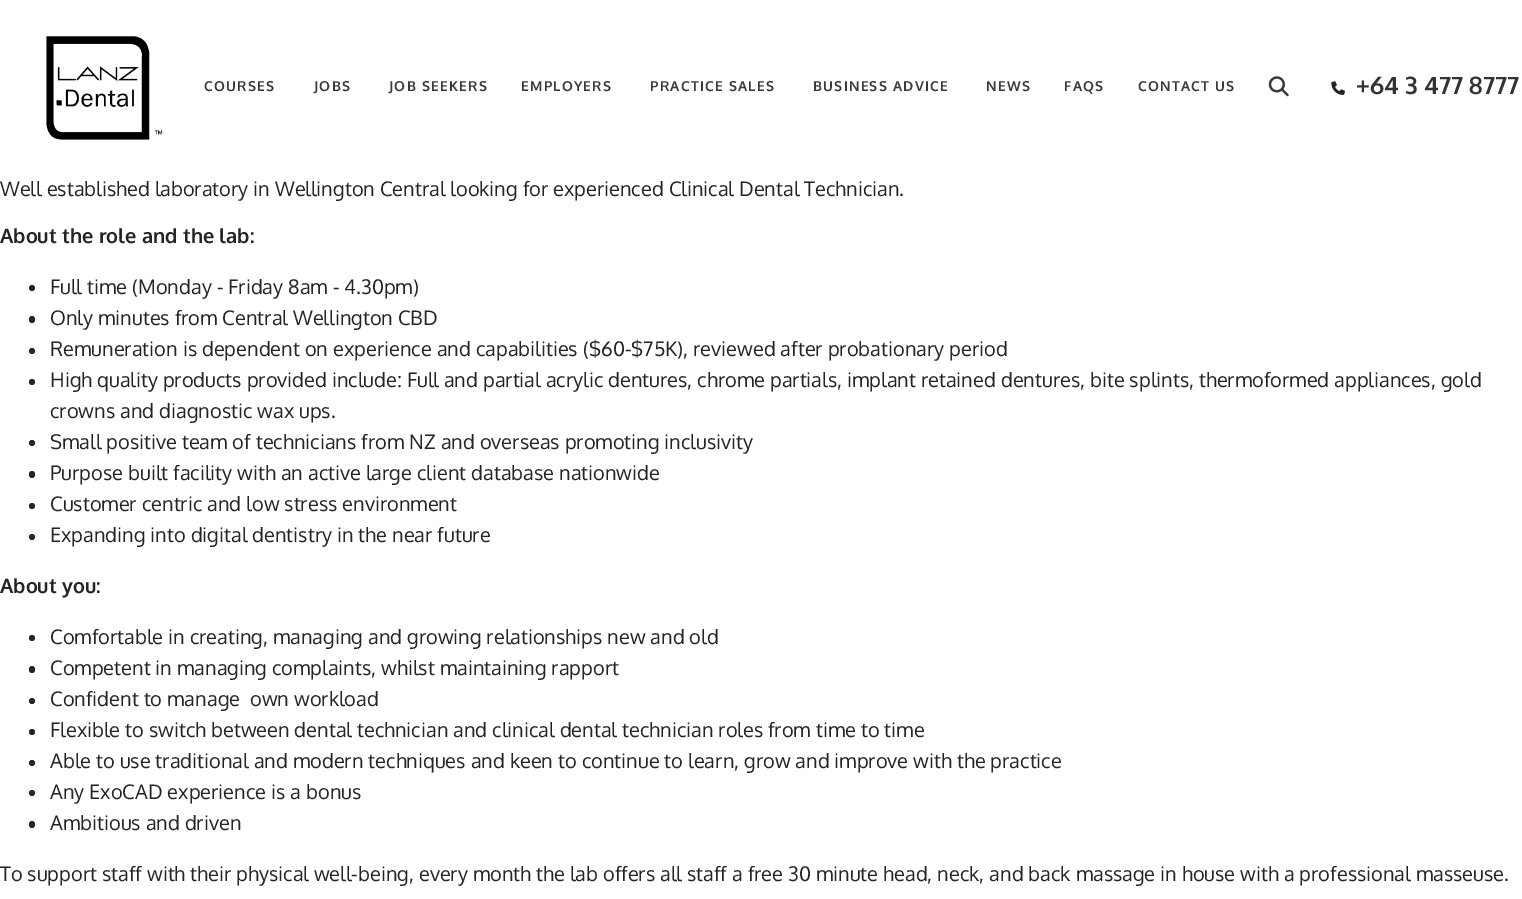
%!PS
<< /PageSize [1522 899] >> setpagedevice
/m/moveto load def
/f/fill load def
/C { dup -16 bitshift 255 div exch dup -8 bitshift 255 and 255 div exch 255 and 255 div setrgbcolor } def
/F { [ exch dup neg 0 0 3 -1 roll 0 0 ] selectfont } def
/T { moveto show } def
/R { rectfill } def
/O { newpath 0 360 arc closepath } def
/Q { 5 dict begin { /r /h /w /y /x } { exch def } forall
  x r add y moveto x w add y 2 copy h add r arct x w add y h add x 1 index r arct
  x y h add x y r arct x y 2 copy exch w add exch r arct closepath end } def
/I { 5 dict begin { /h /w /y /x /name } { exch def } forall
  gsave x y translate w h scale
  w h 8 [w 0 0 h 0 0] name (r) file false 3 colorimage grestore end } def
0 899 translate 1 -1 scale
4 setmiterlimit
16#FFFFFF C
0 0 1522 899 R
(1.rgb) 46 36 117 104 I
/Oxygen-Bold 13.75 F
16#3A3A3A C
204 91 m 1.25 0 (COURSES) ashow
314 91 m 1.25 0 (JOBS) ashow
389 91 m 1.25 0 (JOB SEEKERS) ashow
521 91 m 1.25 0 (EMPLOYERS) ashow
650 91 m 1.25 0 (PRACTICE SALES) ashow
813 91 m 1.25 0 (BUSINESS ADVICE) ashow
986 91 m 1.25 0 (NEWS) ashow
1064 91 m 1.25 0 (FAQS) ashow
1138 91 m 1.25 0 (CONTACT US) ashow
(2.rgb) 1268 76 21 21 I
(3.rgb) 1331 81 14 14 I
/Oxygen-Bold 24 F
16#333333 C
(+64 3 477 8777) 1356 94 T
/Oxygen-Regular 20 F
16#242424 C
(Well established laboratory in Wellington Central looking for experienced Clinical Dental Technician.) 0 196 T
/Oxygen-Bold 20 F
(About the role and the lab:) 0 243 T
32 288 3 O f
/Oxygen-Regular 20 F
(Full time \(Monday - Friday 8am - 4.30pm\)) 50 294 T
29 316 6 7 3 Q f
(Only minutes from Central Wellington CBD) 50 325 T
32 351 3 O f
(Remuneration is dependent on experience and capabilities \($60-$75K\), reviewed after probationary period) 50 356 T
32 382 3 O f
(High quality products provided include: Full and partial acrylic dentures, chrome partials, implant retained dentures, bite splints, thermoformed appliances, gold) 50 387 T
(crowns and diagnostic wax ups.) 50 418 T
32 443 3 O f
(Small positive team of technicians from NZ and overseas promoting inclusivity) 50 449 T
29 471 6 7 3 Q f
(Purpose built facility with an active large client database nationwide) 50 480 T
32 506 3 O f
(Customer centric and low stress environment) 50 511 T
32 537 3 O f
(Expanding into digital dentistry in the near future) 50 542 T
/Oxygen-Bold 20 F
(About you:) 0 593 T
32 638 3 O f
/Oxygen-Regular 20 F
(Comfortable in creating, managing and growing relationships new and old) 50 644 T
29 666 6 7 3 Q f
(Competent in managing complaints, whilst maintaining rapport) 50 675 T
32 701 3 O f
(Confident to manage  own workload) 50 706 T
32 732 3 O f
(Flexible to switch between dental technician and clinical dental technician roles from time to time) 50 737 T
32 763 3 O f
(Able to use traditional and modern techniques and keen to continue to learn, grow and improve with the practice) 50 768 T
32 793 3 O f
(Any ExoCAD experience is a bonus) 50 799 T
29 821 6 7 3 Q f
(Ambitious and driven) 50 830 T
(To support staff with their physical well-being, every month the lab offers all staff a free 30 minute head, neck, and back massage in house with a professional masseuse.) 0 881 T
showpage
